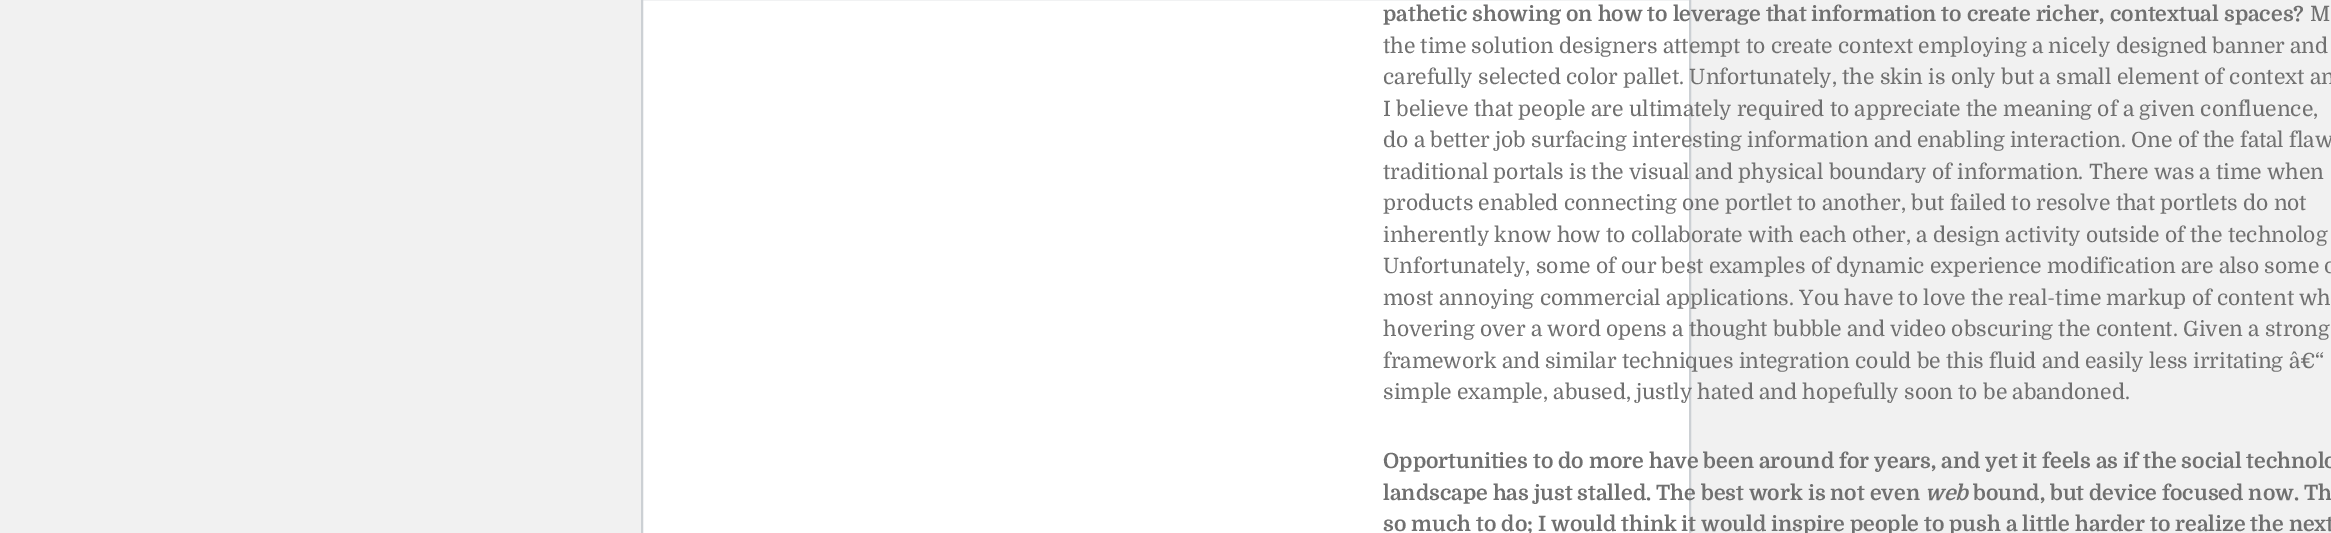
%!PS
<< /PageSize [2331 533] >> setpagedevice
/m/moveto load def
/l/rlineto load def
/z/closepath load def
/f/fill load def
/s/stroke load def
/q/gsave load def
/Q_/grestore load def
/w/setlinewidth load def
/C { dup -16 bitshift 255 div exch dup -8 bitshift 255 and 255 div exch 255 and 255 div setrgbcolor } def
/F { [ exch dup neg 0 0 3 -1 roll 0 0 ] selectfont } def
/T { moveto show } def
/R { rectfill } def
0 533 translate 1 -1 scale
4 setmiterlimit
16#F1F1F1 C
0 0 2331 533 R
16#FFFFFF C
642 -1 m 1048 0 l 0 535 l -1048 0 l z q f Q_
16#CCD0D4 C
2 w
s
/Domine-Bold 21 F
16#707070 C
(pathetic showing on how to leverage that information to create richer, contextual spaces?) 1383 21 T
/Domine-Regular 21 F
(M) 2310 21 T
(the time solution designers attempt to create context employing a nicely designed banner and) 1383 53 T
(carefully selected color pallet. Unfortunately, the skin is only but a small element of context an) 1383 84 T
(I believe that people are ultimately required to appreciate the meaning of a given confluence,) 1383 116 T
(do a better job surfacing interesting information and enabling interaction. One of the fatal flaw) 1383 147 T
(traditional portals is the visual and physical boundary of information. There was a time when) 1383 179 T
(products enabled connecting one portlet to another, but failed to resolve that portlets do not) 1383 210 T
(inherently know how to collaborate with each other, a design activity outside of the technolog) 1383 242 T
(Unfortunately, some of our best examples of dynamic experience modification are also some o) 1383 273 T
(most annoying commercial applications. You have to love the real-time markup of content wh) 1383 305 T
(hovering over a word opens a thought bubble and video obscuring the content. Given a strong) 1383 336 T
(framework and similar techniques integration could be this fluid and easily less irritating â€“) 1383 368 T
(simple example, abused, justly hated and hopefully soon to be abandoned.) 1383 399 T
/Domine-Bold 21 F
(Opportunities to do more have been around for years, and yet it feels as if the social technolo) 1383 468 T
(landscape has just stalled. The best work is not even) 1383 500 T
/Domine-BoldItalic 21 F
(web) 1925 500 T
/Domine-Bold 21 F
(bound, but device focused now. Th) 1973 500 T
(so much to do; I would think it would inspire people to push a little harder to realize the next) 1383 531 T
showpage
